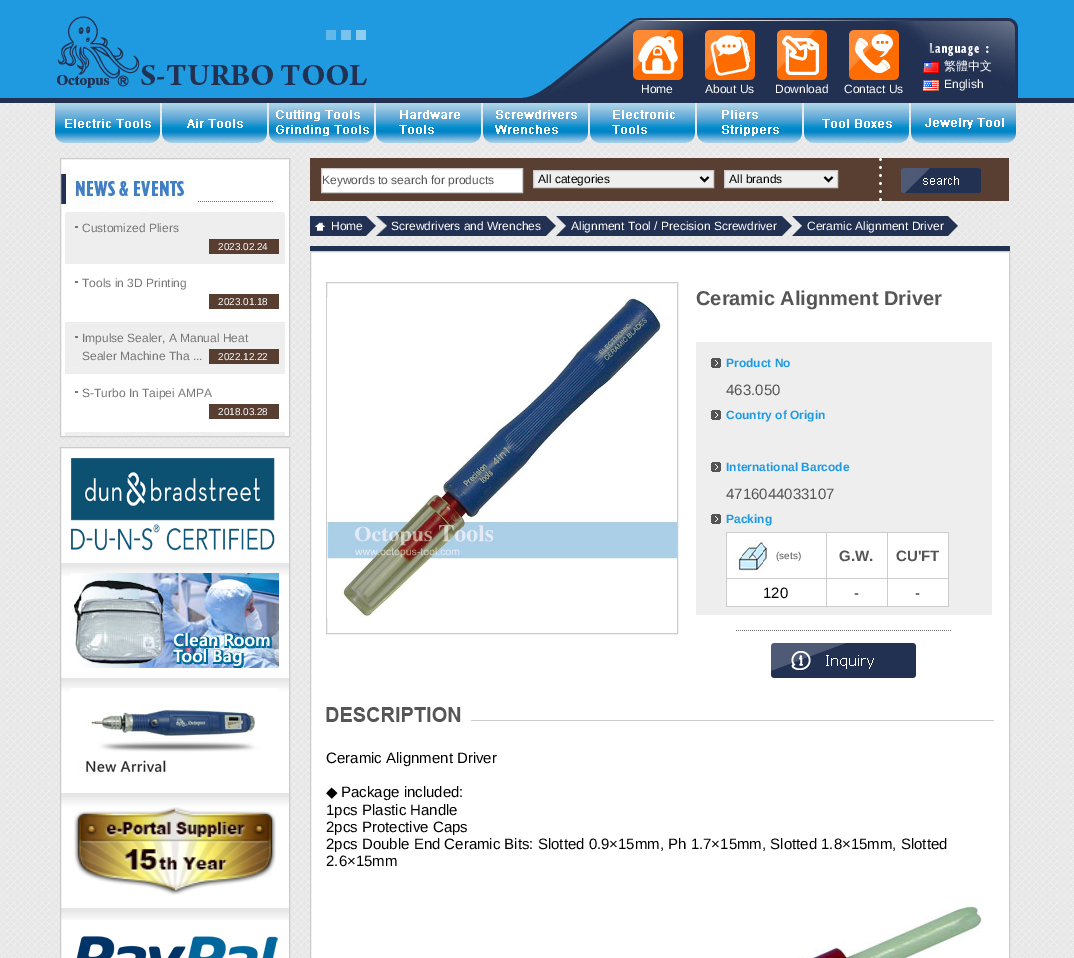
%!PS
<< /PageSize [1074 958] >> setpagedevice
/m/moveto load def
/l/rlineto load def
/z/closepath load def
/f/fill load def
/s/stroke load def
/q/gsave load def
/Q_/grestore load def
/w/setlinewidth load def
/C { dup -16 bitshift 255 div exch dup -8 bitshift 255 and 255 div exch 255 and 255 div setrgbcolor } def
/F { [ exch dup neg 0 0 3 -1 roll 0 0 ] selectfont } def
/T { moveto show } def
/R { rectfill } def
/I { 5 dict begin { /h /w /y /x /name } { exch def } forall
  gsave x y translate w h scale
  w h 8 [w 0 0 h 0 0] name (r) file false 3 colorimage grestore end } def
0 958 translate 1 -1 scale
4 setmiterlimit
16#FFFFFF C
0 0 1074 958 R
(1.rgb) 0 103 1074 855 I
(2.rgb) 0 0 1074 103 I
(3.rgb) 50 16 318 72 I
(4.rgb) 520 16 498 87 I
(5.rgb) 633 30 50 50 I
/LiberationSans-Regular 12 F
(Home) 641 93 T
(6.rgb) 705 30 50 50 I
(About Us) 705 93 T
(7.rgb) 777 30 50 50 I
(Download) 775 93 T
(8.rgb) 849 30 50 50 I
(Contact Us) 844 93 T
(9.rgb) 923 62 16 11 I
/WenQuanYiZenHei-Medium 12 F
(繁體中文) 944 70 T
(10.rgb) 923 80 16 11 I
/LiberationSans-Regular 12 F
(English) 944 88 T
(11.rgb) 55 103 105 40 I
(12.rgb) 162 103 105 40 I
(13.rgb) 269 103 105 40 I
(14.rgb) 376 103 105 40 I
(15.rgb) 483 103 105 40 I
(16.rgb) 590 103 105 40 I
(17.rgb) 697 103 105 40 I
(18.rgb) 804 103 105 40 I
(19.rgb) 911 103 105 40 I
61 159 228 277 R
(20.rgb) 61 167 224 269 I
16#CCCCCC C
60.5 158.5 229 278 rectstroke
16#777777 C
75 226 3 2 R
(Customized Pliers) 82 232 T
16#583E31 C
209 239 70 15 R
/LiberationSans-Regular 10 F
16#FFFFFF C
(2023.02.24) 218 250 T
16#777777 C
75 281 3 2 R
/LiberationSans-Regular 12 F
(Tools in 3D Printing) 82 287 T
16#583E31 C
209 294 70 15 R
/LiberationSans-Regular 10 F
16#FFFFFF C
(2023.01.18) 218 305 T
16#777777 C
75 336 3 2 R
/LiberationSans-Regular 12 F
(Impulse Sealer, A Manual Heat) 82 342 T
(Sealer Machine Tha ...) 82 360 T
16#583E31 C
209 349 70 15 R
/LiberationSans-Regular 10 F
16#FFFFFF C
(2022.12.22) 218 360 T
16#777777 C
75 391 3 2 R
/LiberationSans-Regular 12 F
(S-Turbo In Taipei AMPA) 82 397 T
16#583E31 C
209 404 70 15 R
/LiberationSans-Regular 10 F
16#FFFFFF C
(2018.03.28) 218 415 T
61 448 228 510 R
(21.rgb) 61 563 228 357 I
16#CCCCCC C
60.5 447.5 229 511 rectstroke
(22.rgb) 71 458 204 93 I
(23.rgb) 71 573 208 95 I
(24.rgb) 71 688 208 88 I
(25.rgb) 74 807 202 88 I
(26.rgb) 76 936 202 22 I
(27.rgb) 310 158 699 43 I
16#FFFFFF C
321.5 168.5 m 201 0 l 0 24 l -201 0 l z q f Q_
16#CCCCCC C
s
/LiberationSans-Regular 12 F
16#555555 C
(Keywords to search for products) 322 184 T
16#EFEFEF C
533.5 170.5 m 180 0 l 0 17 l -180 0 l z q f Q_
16#CCCCCC C
s
16#000000 C
2 w
700.5 177 m 4 4 l 4 -4 l s
(All categories) 538 183 T
16#EFEFEF C
724.5 170.5 m 113 0 l 0 17 l -113 0 l z q f Q_
16#CCCCCC C
1 w
s
16#000000 C
2 w
824.5 177 m 4 4 l 4 -4 l s
(All brands) 729 183 T
(28.rgb) 901 168 80 25 I
16#223152 C
310 246 700 5 R
(29.rgb) 310 216 66 20 I
16#FFFFFF C
(Home) 331 230 T
16#223152 C
387 216 159 20 R
(30.rgb) 376 216 11 20 I
(31.rgb) 546 216 10 20 I
16#FFFFFF C
(Screwdrivers and Wrenches) 391 230 T
16#223152 C
566 216 216 20 R
(32.rgb) 556 216 10 20 I
(31.rgb) 782 216 10 20 I
16#FFFFFF C
(Alignment Tool / Precision Screwdriver) 571 230 T
16#223152 C
802 216 146 20 R
(32.rgb) 792 216 10 20 I
(31.rgb) 948 216 10 20 I
16#FFFFFF C
(Ceramic Alignment Driver) 807 230 T
310.5 251.5 m 699 0 l 0 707 l -699 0 l z q f Q_
16#CCCCCC C
1 w
s
326.5 282.5 351 351 rectstroke
(33.rgb) 327 297 350 321 I
/LiberationSans-Bold 20 F
16#555555 C
(Ceramic Alignment Driver) 696 305 T
16#EEEEEE C
696 342 296 273 R
(34.rgb) 711 358 10 10 I
/LiberationSans-Bold 12 F
16#1F9AE0 C
(Product No) 726 367 T
/LiberationSans-Regular 15 F
16#555555 C
(463.050) 726 395 T
(34.rgb) 711 410 10 10 I
/LiberationSans-Bold 12 F
16#1F9AE0 C
(Country of Origin) 726 419 T
(34.rgb) 711 462 10 10 I
(International Barcode) 726 471 T
/LiberationSans-Regular 15 F
16#555555 C
(4716044033107) 726 499 T
(34.rgb) 711 514 10 10 I
/LiberationSans-Bold 12 F
16#1F9AE0 C
(Packing) 726 523 T
16#FFFFFF C
727 533 221 73 R
16#CCCCCC C
726 532 223 1 R
948 532 1 75 R
726 606 223 1 R
726 532 1 75 R
(35.rgb) 735 539 32 34 I
/LiberationSans-Regular 10 F
16#555555 C
(\(sets\)) 776 559 T
16#CCCCCC C
887 578 62 1 R
887 578 1 29 R
826 578 62 1 R
826 578 1 29 R
726 578 101 1 R
826 532 1 47 R
/LiberationSans-Bold 15 F
16#555555 C
(G.W.) 839 561 T
16#CCCCCC C
887 532 1 47 R
16#555555 C
(CU'FT) 896 561 T
/LiberationSans-Regular 15 F
16#000000 C
(120) 763 598 T
(-) 854 598 T
(-) 915 598 T
(36.rgb) 736 630 215 1 I
(37.rgb) 771 643 145 35 I
16#CCCCCC C
471 720 523 1 R
(38.rgb) 326 707 145 15 I
16#000000 C
(Ceramic Alignment Driver) 326 763 T
/DejaVuSans-Regular 15 F
(◆) 326 797 T
/LiberationSans-Regular 15 F
(Package included:) 341 797 T
(1pcs Plastic Handle) 326 815 T
(2pcs Protective Caps) 326 832 T
(2pcs Double End Ceramic Bits: Slotted 0.9×15mm, Ph 1.7×15mm, Slotted 1.8×15mm, Slotted) 326 849 T
(2.6×15mm) 326 866 T
(39.rgb) 798 901 184 57 I
showpage
